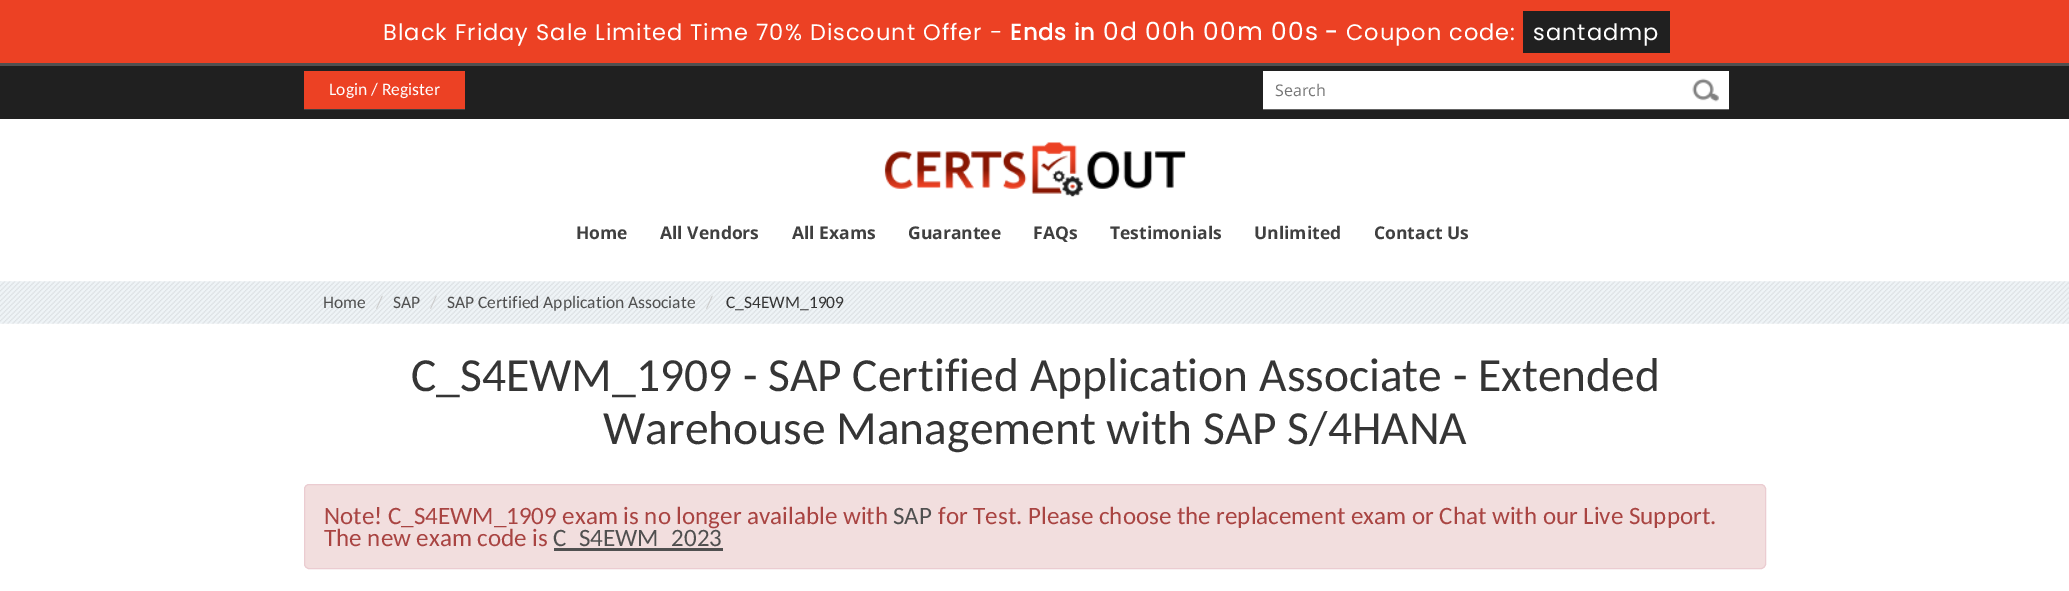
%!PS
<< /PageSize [2069 591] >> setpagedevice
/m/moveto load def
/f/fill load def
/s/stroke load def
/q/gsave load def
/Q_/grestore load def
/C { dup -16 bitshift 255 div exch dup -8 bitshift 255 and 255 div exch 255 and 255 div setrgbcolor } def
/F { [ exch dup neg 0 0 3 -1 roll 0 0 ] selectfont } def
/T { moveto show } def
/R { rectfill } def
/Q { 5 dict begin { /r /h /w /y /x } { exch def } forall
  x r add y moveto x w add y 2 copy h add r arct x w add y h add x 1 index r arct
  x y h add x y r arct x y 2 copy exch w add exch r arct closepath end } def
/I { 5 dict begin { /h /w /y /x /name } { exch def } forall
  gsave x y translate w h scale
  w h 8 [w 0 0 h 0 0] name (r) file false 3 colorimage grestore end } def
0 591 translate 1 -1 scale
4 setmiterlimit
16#FFFFFF C
0 0 2069 591 R
16#EC4124 C
0 0 2069 63 R
/Poppins-Regular 22.5 F
16#FFFFFF C
383 40 m 1 0 (Black Friday Sale Limited Time 70% Discount Offer -) ashow
/Poppins-Bold 22.5 F
1010 40 m 1 0 (Ends in) ashow
/Poppins-Regular 25 F
1103 40 m 1 0 (0d 00h 00m 00s) ashow
/Poppins-Bold 22.5 F
1325 40 m 1 0 (-) ashow
/Poppins-Regular 22.5 F
1346 40 m 1 0 (Coupon code:) ashow
16#202020 C
1523 11 147 42 R
16#FFFFFF C
1533 40 m 1 0 (santadmp) ashow
16#202020 C
0 66 2069 53 R
16#505050 C
0 63 2069 3 R
16#404040 C
304 109 161 1 R
16#EC4124 C
304 71 161 38 R
/Carlito-Regular 17.5 F
16#FFFFFF C
(Login / Register) 329 95 T
1263 71 466 38 R
16#646464 C
1263 109 466 1 R
/OpenSans-Regular 16 F
16#757575 C
(Search) 1275 96 T
(1.rgb) 1692 78 27 24 I
(2.rgb) 884 142 302 55 I
/OpenSans-Bold 17.5 F
16#404040 C
(Home) 576 239 T
(All Vendors) 660 239 T
(All Exams) 792 239 T
(Guarantee) 908 239 T
(FAQs) 1033 239 T
(Testimonials) 1110 239 T
(Unlimited) 1254 239 T
(Contact Us) 1374 239 T
(3.rgb) 0 281 2069 43 I
/Carlito-Regular 17.5 F
16#505050 C
(Home) 323 308 T
16#CCCCCC C
(/) 376 308 T
16#505050 C
(SAP) 393 308 T
16#CCCCCC C
(/) 430 308 T
16#505050 C
(SAP Certified Application Associate) 447 308 T
16#CCCCCC C
(/) 706 308 T
16#353535 C
(C_S4EWM_1909) 726 308 T
/Carlito-Regular 47.5 F
(C_S4EWM_1909 - SAP Certified Application Associate - Extended) 411 391 T
(Warehouse Management with SAP S/4HANA) 603 444 T
16#F2DEDE C
304.5 484.5 1461 84 4.5 Q q f Q_
16#EBCCD1 C
s
/Carlito-Regular 25 F
16#A94442 C
(Note! C_S4EWM_1909 exam is no longer available with) 324 524 T
16#505050 C
(SAP) 893 524 T
16#A94442 C
(for Test. Please choose the replacement exam or Chat with our Live Support.) 938 524 T
(The new exam code is) 324 546 T
16#505050 C
554 548 169 3 R
(C_S4EWM_2023) 553 546 T
showpage
